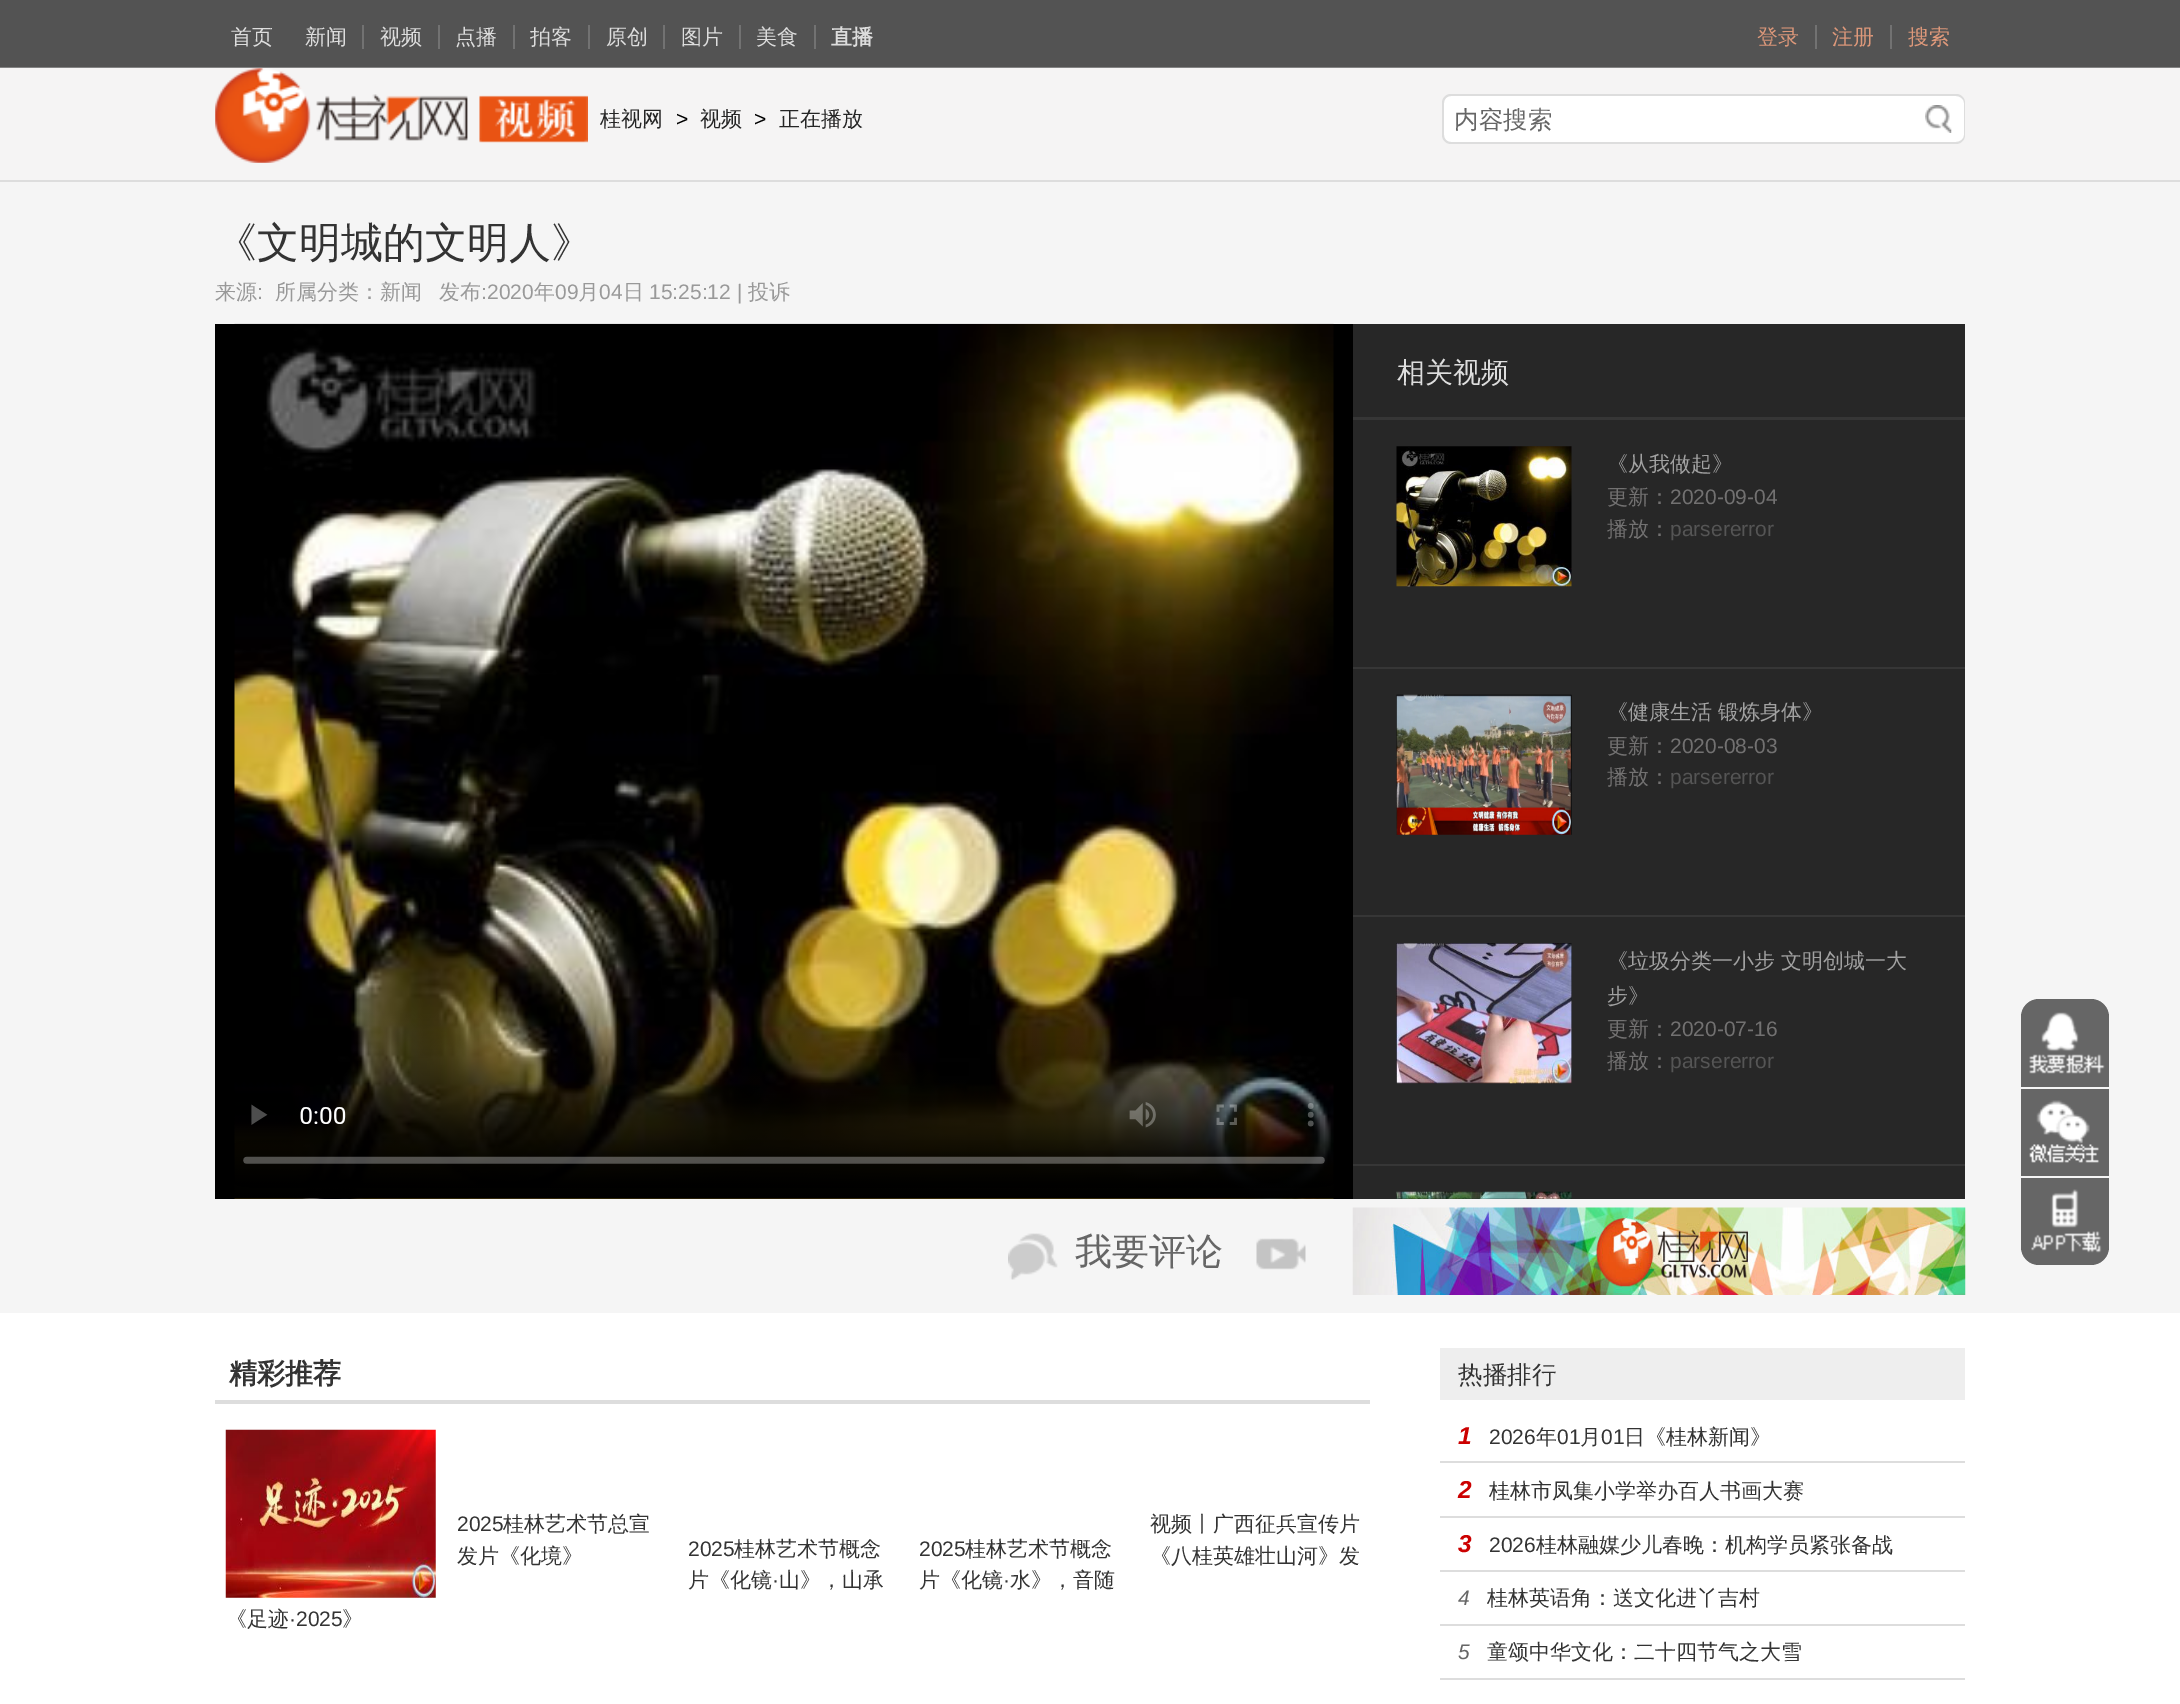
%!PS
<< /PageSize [2180 1704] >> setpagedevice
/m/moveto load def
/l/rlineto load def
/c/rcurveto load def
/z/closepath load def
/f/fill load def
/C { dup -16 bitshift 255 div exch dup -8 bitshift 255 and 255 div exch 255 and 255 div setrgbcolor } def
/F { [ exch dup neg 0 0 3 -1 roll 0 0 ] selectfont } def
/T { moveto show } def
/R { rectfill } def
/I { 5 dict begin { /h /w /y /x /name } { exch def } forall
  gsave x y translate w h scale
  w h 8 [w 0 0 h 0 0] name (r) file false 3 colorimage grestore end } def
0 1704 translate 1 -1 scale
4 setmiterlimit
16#FFFFFF C
0 0 2180 1704 R
16#535353 C
0 0 2180 67 R
16#838383 C
0 67 2180 1 R
/WenQuanYiZenHei-Medium 21 F
16#DDDDDD C
(首页) 231 44 T
(新闻) 305 44 T
(视频) 380 44 T
16#727272 C
362 25 2 24 R
16#DDDDDD C
(点播) 455 44 T
16#727272 C
438 25 2 24 R
16#DDDDDD C
(拍客) 530 44 T
16#727272 C
513 25 2 24 R
16#DDDDDD C
(原创) 606 44 T
16#727272 C
588 25 2 24 R
16#DDDDDD C
(图片) 681 44 T
16#727272 C
663 25 2 24 R
16#DDDDDD C
(美食) 756 44 T
16#727272 C
739 25 2 24 R
/WenQuanYiZenHei-Bold 21 F
16#DDDDDD C
(直播) 831 44 T
16#727272 C
814 25 2 24 R
/WenQuanYiZenHei-Medium 21 F
16#DD987A C
(登录) 1757 44 T
(注册) 1832 44 T
16#727272 C
1815 25 2 24 R
16#DD987A C
(搜索) 1908 44 T
16#727272 C
1890 25 2 24 R
16#F5F4F4 C
0 68 2180 112 R
16#DDDDDD C
0 180 2180 2 R
(1.rgb) 215 68 373 95 I
16#252525 C
(桂视网) 600 126 T
/LiberationSans-Regular 21 F
16#000000 C
(>) 676 126 T
/WenQuanYiZenHei-Medium 21 F
16#252525 C
(视频) 700 126 T
/LiberationSans-Regular 21 F
16#000000 C
(>) 754 126 T
/WenQuanYiZenHei-Medium 21 F
16#252525 C
(正在播放) 779 126 T
16#FFFFFF C
1451 95 m 462 0 l 0 49 l -462 0 l -5 0 -9 -4 -9 -9 c 0 -31 l 0 -5 4 -9 9 -9 c z f
16#DDDDDD C
1451 94 m 462 0 l 0 50 l -462 0 l -5 0 -9 -4 -9 -9 c 0 -32 l 0 -5 4 -9 9 -9 c z 1451 96 m 462 0 l 0 46 l -462 0 l -4 0 -7 -3 -7 -7 c 0 -32 l 0 -4 3 -7 7 -7 c z eofill
/WenQuanYiZenHei-Medium 24.5 F
16#666666 C
(内容搜索) 1454 128 T
16#FFFFFF C
1913 95 m 43 0 l 5 0 9 4 9 9 c 0 31 l 0 5 -4 9 -9 9 c -43 0 l z f
(2.rgb) 1925 105 27 28 I
16#DDDDDD C
1913 94 m 43 0 l 5 0 9 4 9 9 c 0 32 l 0 5 -4 9 -9 9 c -43 0 l z 1913 96 m 43 0 l 4 0 8 3 8 7 c 0 32 l 0 4 -4 7 -8 7 c -43 0 l z eofill
16#F5F5F5 C
0 182 2180 1131 R
/WenQuanYiZenHei-Medium 42 F
16#333333 C
(《文明城的文明人》) 215 257 T
/WenQuanYiZenHei-Medium 21 F
16#999999 C
(来源) 215 299 T
/LiberationSans-Regular 21 F
(:) 257 299 T
/WenQuanYiZenHei-Medium 21 F
(所属分类：新闻) 275 299 T
(发布) 439 299 T
/LiberationSans-Regular 21 F
(:2020) 481 299 T
/WenQuanYiZenHei-Medium 21 F
(年) 534 299 T
/LiberationSans-Regular 21 F
(09) 555 299 T
/WenQuanYiZenHei-Medium 21 F
(月) 578 299 T
/LiberationSans-Regular 21 F
(04) 599 299 T
/WenQuanYiZenHei-Medium 21 F
(日) 623 299 T
/LiberationSans-Regular 21 F
(15:25:12 |) 649 299 T
/WenQuanYiZenHei-Medium 21 F
(投诉) 748 299 T
16#000000 C
215 324 1138 875 R
(3.rgb) 234 323 1100 876 I
16#272727 C
1353 324 612 875 R
16#363636 C
1353 417 612 3 R
/WenQuanYiZenHei-Medium 28 F
16#DDDDDD C
(相关视频) 1397 382 T
16#363636 C
1353 667 612 2 R
(4.rgb) 1396 446 176 141 I
/WenQuanYiZenHei-Medium 21 F
16#A1A1A1 C
(《从我做起》) 1607 471 T
16#727171 C
(更新：) 1607 504 T
/LiberationSans-Regular 21 F
(2020-09-04) 1670 504 T
/WenQuanYiZenHei-Medium 21 F
(播放：) 1607 536 T
/LiberationSans-Regular 21 F
16#555555 C
(parsererror) 1670 536 T
16#363636 C
1353 915 612 2 R
(5.rgb) 1396 694 176 141 I
/WenQuanYiZenHei-Medium 21 F
16#A1A1A1 C
(《健康生活 锻炼身体》) 1607 719 T
16#727171 C
(更新：) 1607 753 T
/LiberationSans-Regular 21 F
(2020-08-03) 1670 753 T
/WenQuanYiZenHei-Medium 21 F
(播放：) 1607 784 T
/LiberationSans-Regular 21 F
16#555555 C
(parsererror) 1670 784 T
16#363636 C
1353 1164 612 2 R
(6.rgb) 1396 943 176 141 I
/WenQuanYiZenHei-Medium 21 F
16#A1A1A1 C
(《垃圾分类一小步 文明创城一大) 1607 968 T
(步》) 1607 1003 T
16#727171 C
(更新：) 1607 1036 T
/LiberationSans-Regular 21 F
(2020-07-16) 1670 1036 T
/WenQuanYiZenHei-Medium 21 F
(播放：) 1607 1068 T
/LiberationSans-Regular 21 F
16#555555 C
(parsererror) 1670 1068 T
(7.rgb) 1396 1191 176 8 I
(8.rgb) 1008 1233 50 47 I
/WenQuanYiZenHei-Medium 37 F
16#666666 C
(我要评论) 1075 1264 T
(9.rgb) 1256 1238 50 32 I
(10.rgb) 1352 1207 614 88 I
2039 999 m 52 0 l 10 0 18 8 18 18 c 0 70 l -88 0 l 0 -70 l 0 -10 8 -18 18 -18 c z f
(11.rgb) 2029 1012 76 62 I
2021 1089 88 87 R
(12.rgb) 2029 1100 70 63 I
2021 1178 m 88 0 l 0 69 l 0 10 -8 18 -18 18 c -52 0 l -10 0 -18 -8 -18 -18 c z f
(13.rgb) 2031 1189 71 64 I
16#DDDDDD C
215 1400 1155 4 R
/WenQuanYiZenHei-Bold 28 F
16#333333 C
(精彩推荐) 229 1383 T
/LiberationSans-Regular 21 F
(2025) 457 1531 T
/WenQuanYiZenHei-Medium 21 F
(桂林艺术节总宣) 503 1531 T
(发片《化境》) 457 1563 T
/LiberationSans-Regular 21 F
(2025) 688 1556 T
/WenQuanYiZenHei-Medium 21 F
(桂林艺术节概念) 734 1556 T
(片《化镜) 688 1587 T
/LiberationSans-Regular 21 F
(·) 772 1587 T
/WenQuanYiZenHei-Medium 21 F
(山》，山承) 779 1587 T
/LiberationSans-Regular 21 F
(2025) 919 1556 T
/WenQuanYiZenHei-Medium 21 F
(桂林艺术节概念) 965 1556 T
(片《化镜) 919 1587 T
/LiberationSans-Regular 21 F
(·) 1003 1587 T
/WenQuanYiZenHei-Medium 21 F
(水》，音随) 1010 1587 T
(视频丨广西征兵宣传片) 1150 1531 T
(《八桂英雄壮山河》发) 1150 1563 T
(14.rgb) 225 1429 211 169 I
(《足迹) 226 1626 T
/LiberationSans-Regular 21 F
(·2025) 289 1626 T
/WenQuanYiZenHei-Medium 21 F
(》) 342 1626 T
16#EEEEEE C
1440 1348 525 52 R
/WenQuanYiZenHei-Medium 24.5 F
16#333333 C
(热播排行) 1458 1383 T
16#DDDDDD C
1440 1461 525 2 R
/LiberationSans-BoldItalic 24.5 F
16#CC0000 C
(1) 1458 1444 T
/LiberationSans-Regular 21 F
16#333333 C
(2026) 1489 1444 T
/WenQuanYiZenHei-Medium 21 F
(年) 1536 1444 T
/LiberationSans-Regular 21 F
(01) 1557 1444 T
/WenQuanYiZenHei-Medium 21 F
(月) 1580 1444 T
/LiberationSans-Regular 21 F
(01) 1601 1444 T
/WenQuanYiZenHei-Medium 21 F
(日《桂林新闻》) 1624 1444 T
16#DDDDDD C
1440 1516 525 2 R
/LiberationSans-BoldItalic 24.5 F
16#CC0000 C
(2) 1458 1498 T
/WenQuanYiZenHei-Medium 21 F
16#333333 C
(桂林市凤集小学举办百人书画大赛) 1489 1498 T
16#DDDDDD C
1440 1570 525 2 R
/LiberationSans-BoldItalic 24.5 F
16#CC0000 C
(3) 1458 1552 T
/LiberationSans-Regular 21 F
16#333333 C
(2026) 1489 1552 T
/WenQuanYiZenHei-Medium 21 F
(桂林融媒少儿春晚：机构学员紧张备战) 1536 1552 T
16#DDDDDD C
1440 1624 525 2 R
/LiberationSans-Italic 21 F
16#666666 C
(4) 1458 1605 T
/WenQuanYiZenHei-Medium 21 F
16#333333 C
(桂林英语角：送文化进丫吉村) 1487 1605 T
16#DDDDDD C
1440 1678 525 2 R
/LiberationSans-Italic 21 F
16#666666 C
(5) 1458 1659 T
/WenQuanYiZenHei-Medium 21 F
16#333333 C
(童颂中华文化：二十四节气之大雪) 1487 1659 T
showpage
